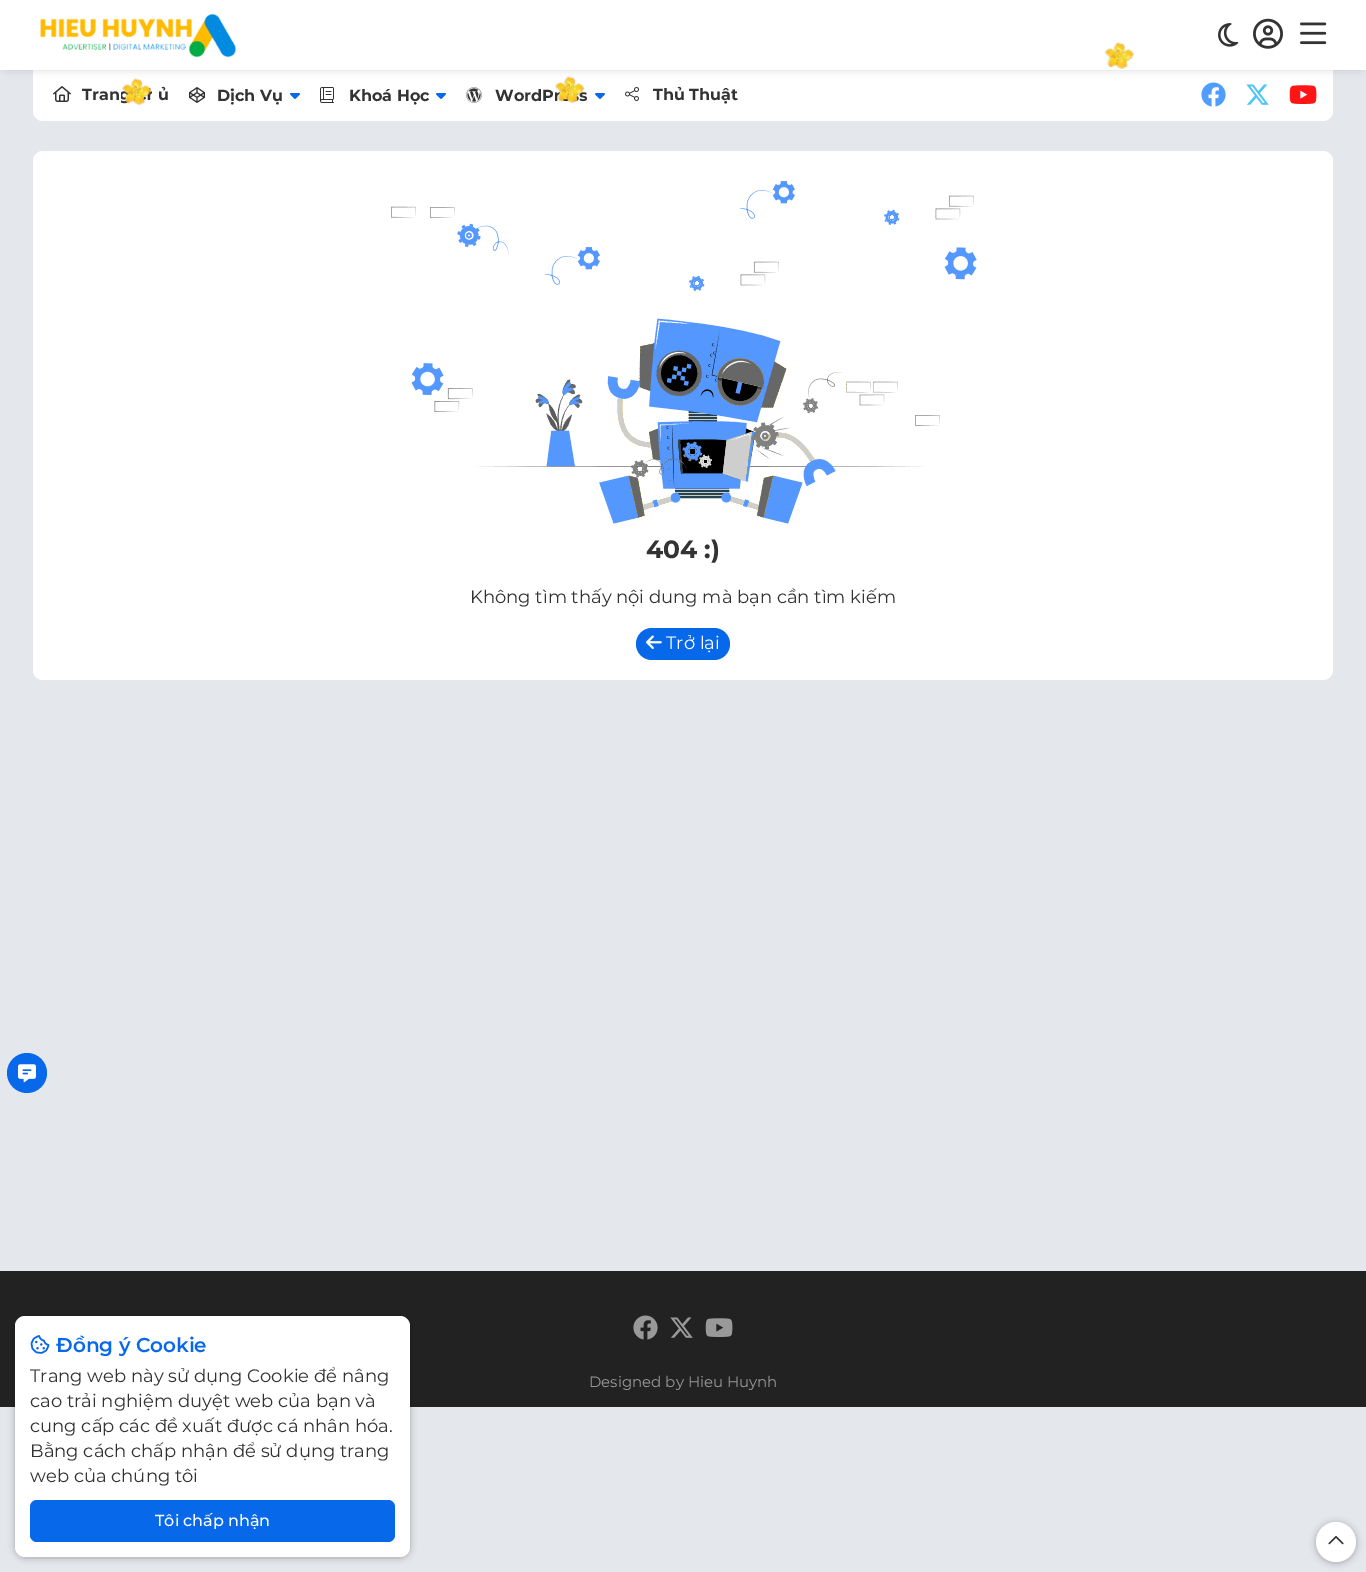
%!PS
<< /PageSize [1366 1572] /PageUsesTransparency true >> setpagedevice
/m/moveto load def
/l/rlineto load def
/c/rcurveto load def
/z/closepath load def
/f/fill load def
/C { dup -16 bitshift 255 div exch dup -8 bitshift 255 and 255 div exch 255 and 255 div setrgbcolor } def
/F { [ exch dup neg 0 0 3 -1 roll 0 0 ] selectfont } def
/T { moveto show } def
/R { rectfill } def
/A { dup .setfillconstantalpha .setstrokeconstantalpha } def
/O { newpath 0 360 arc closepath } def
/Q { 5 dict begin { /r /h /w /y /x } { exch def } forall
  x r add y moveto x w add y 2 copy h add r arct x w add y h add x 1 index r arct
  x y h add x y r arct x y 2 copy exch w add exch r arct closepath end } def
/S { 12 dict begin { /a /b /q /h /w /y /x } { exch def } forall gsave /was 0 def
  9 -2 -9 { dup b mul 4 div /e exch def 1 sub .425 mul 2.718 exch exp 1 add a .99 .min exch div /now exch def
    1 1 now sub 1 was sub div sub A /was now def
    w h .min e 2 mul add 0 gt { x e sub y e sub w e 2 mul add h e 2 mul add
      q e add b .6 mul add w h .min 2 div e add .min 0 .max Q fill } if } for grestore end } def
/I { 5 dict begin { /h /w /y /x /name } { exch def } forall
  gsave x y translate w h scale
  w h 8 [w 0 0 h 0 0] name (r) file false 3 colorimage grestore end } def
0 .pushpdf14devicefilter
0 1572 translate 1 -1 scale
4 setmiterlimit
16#E4E7EC C
0 0 1366 1572 R
16#FFFFFF C
33 60 m 1300 0 l 0 51 l 0 5.5 -4.5 10 -10 10 c -1280 0 l -5.5 0 -10 -4.5 -10 -10 c z f
(14.rgb) 1201 82 25 25 I
16#000000 C
7 11 1352 56 0 5 .28 S
16#FFFFFF C
0 0 1366 70 R
(1.rgb) 1104 42 30 27 I
(2.rgb) 121 78 31 27 I
/Montserrat-Bold 16 F
16#333333 C
(WordPr) 495 101 T
(s) 579 101 T
(3.rgb) 555 76 30 27 I
(4.rgb) 40 13 196 45 I
(5.rgb) 1218 23 21 24 I
(6.rgb) 1253 18 30 31 I
(7.rgb) 1300 22 27 23 I
(8.rgb) 53 86 18 16 I
(Tran) 82 100 T
(ủ) 158 100 T
(9.rgb) 189 87 16 16 I
(Dịch Vụ) 217 101 T
(10.rgb) 290 93 10 6 I
(11.rgb) 320 87 14 16 I
(Khoá Học) 349 101 T
(10.rgb) 436 93 10 6 I
(12.rgb) 466 87 16 16 I
(10.rgb) 595 93 10 6 I
(13.rgb) 625 87 14 14 I
(Thủ Thuật) 653 100 T
(15.rgb) 1246 84 23 21 I
(16.rgb) 1289 85 28 19 I
16#FFFFFF C
33 151 1300 529 10 Q f
(17.rgb) 391 181 586 343 I
/Montserrat-Bold 25 F
16#333333 C
(404 :\)) 646 558 T
/Montserrat-Regular 18 F
(Không tìm thấy nội dung mà bạn cần tìm kiếm) 470 603 T
16#0768EA C
636 628 94 32 16 Q f
(18.rgb) 646 635 16 14 I
16#FFFFFF C
(Trở lại) 666 649 T
16#0768EA C
27 1073 20 O f
(19.rgb) 18 1064 18 19 I
16#222222 C
0 1271 1366 136 R
16#000000 C
15 1317 395 241 10 3.5 .29 S
16#FFFFFF C
15 1316 395 241 10 Q f
(20.rgb) 30 1335 20 19 I
/Montserrat-SemiBold 20 F
16#0768EA C
(Đồng ý Cookie) 56 1352 T
/Montserrat-Regular 18 F
16#333333 C
(Trang web này sử dụng Cookie để nâng) 30 1382 T
(cao trải nghiệm duyệt web của bạn và) 30 1407 T
(cung cấp các đề xuất được cá nhân hóa.) 30 1432 T
(Bằng cách chấp nhận để sử dụng trang) 30 1457 T
(web của chúng tôi) 30 1482 T
16#0768EA C
30 1500 365 42 7 Q f
/Montserrat-Medium 16 F
16#FFFFFF C
(Tôi chấp nhận) 155 1526 T
(21.rgb) 633 1315 25 25 I
(22.rgb) 670 1317 23 21 I
(23.rgb) 705 1318 28 19 I
/Montserrat-Regular 15 F
16#999999 C
(Designed by Hieu Huynh) 589 1387 T
16#000000 C
1316 1523 40 40 20 3.5 .29 S
16#FFFFFF C
1336 1542 20 O f
(24.rgb) 1328 1536 16 9 I
.poppdf14devicefilter showpage
